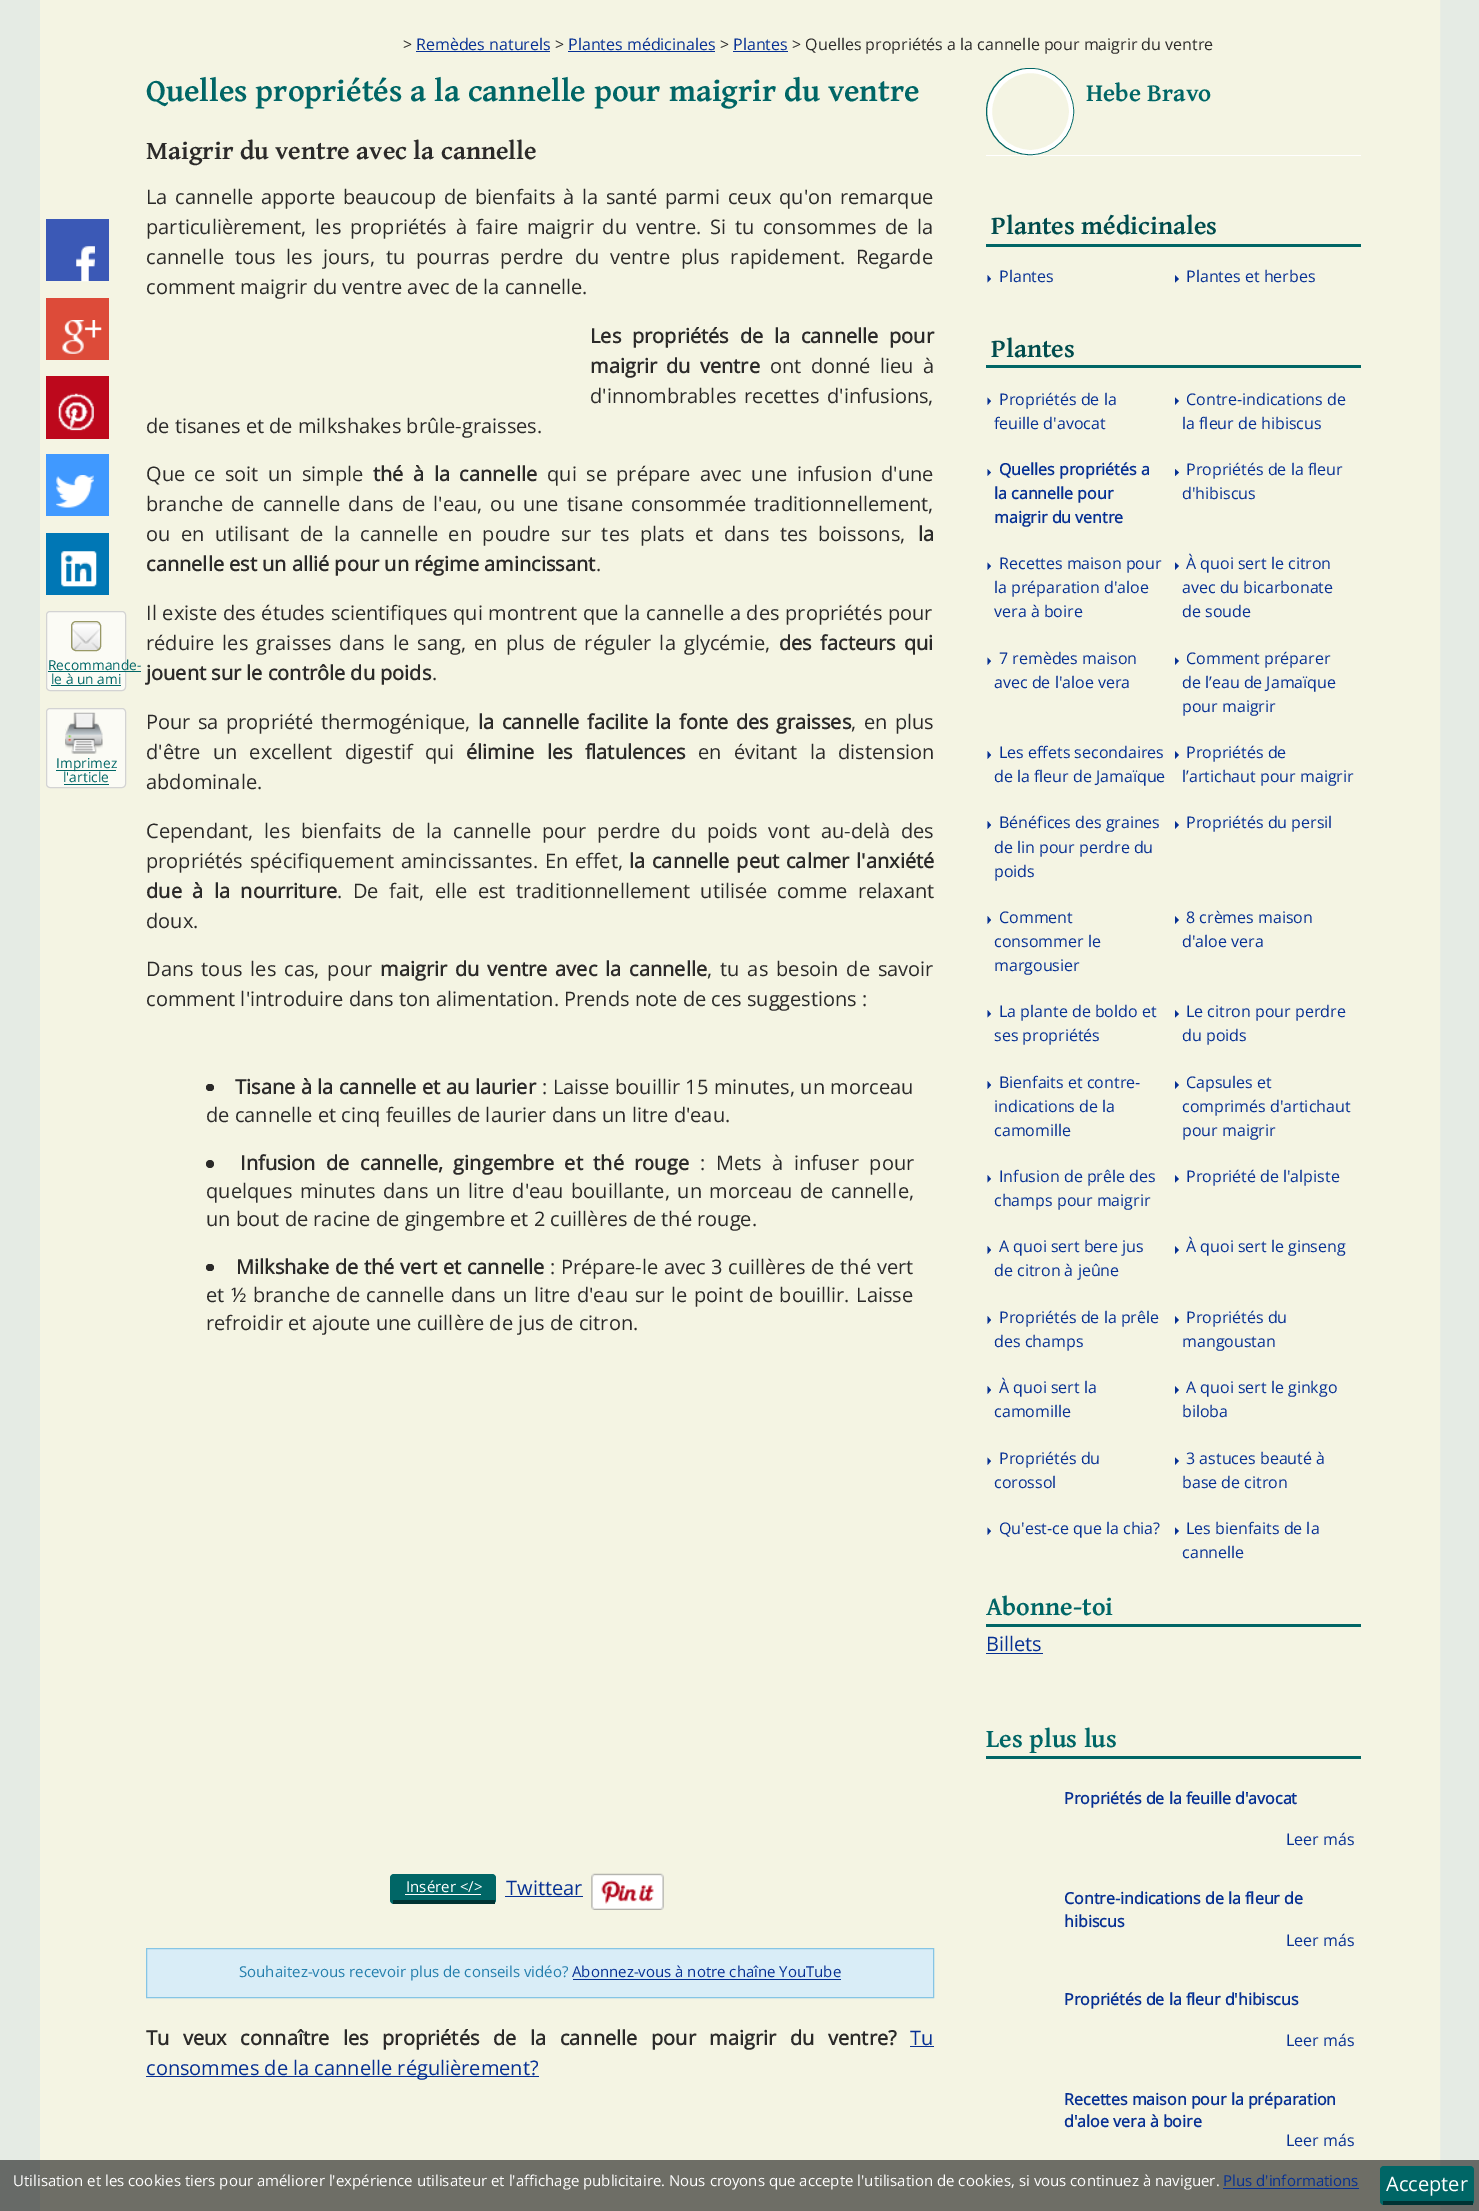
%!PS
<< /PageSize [1479 2211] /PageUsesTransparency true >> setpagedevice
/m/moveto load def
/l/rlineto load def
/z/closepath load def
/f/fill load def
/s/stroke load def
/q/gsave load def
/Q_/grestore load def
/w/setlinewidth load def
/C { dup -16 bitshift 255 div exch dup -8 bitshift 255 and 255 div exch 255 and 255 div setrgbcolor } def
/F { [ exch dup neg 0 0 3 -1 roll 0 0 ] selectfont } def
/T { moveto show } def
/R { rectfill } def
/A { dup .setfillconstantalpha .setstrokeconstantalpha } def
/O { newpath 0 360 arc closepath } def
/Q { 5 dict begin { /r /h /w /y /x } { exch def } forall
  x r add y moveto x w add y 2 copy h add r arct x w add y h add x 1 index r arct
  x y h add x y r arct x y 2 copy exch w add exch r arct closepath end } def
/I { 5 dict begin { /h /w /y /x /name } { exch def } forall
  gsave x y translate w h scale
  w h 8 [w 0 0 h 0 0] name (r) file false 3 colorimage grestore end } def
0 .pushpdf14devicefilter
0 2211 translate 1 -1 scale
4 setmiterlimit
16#E5EBE4 C
0 0 1479 2211 R
16#F4F4E3 C
75 w
77.5 -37.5 1325 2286 rectstroke
115 0 1250 2211 R
/OpenSans-Regular 16 F
16#2B2A29 C
(>) 403 50 T
16#063093 C
(Remèdes naturels) 416 50 T
416 51 134 1 R
16#2B2A29 C
(>) 555 50 T
16#063093 C
(Plantes médicinales) 568 50 T
568 51 147 1 R
16#2B2A29 C
(>) 720 50 T
16#063093 C
(Plantes) 733 50 T
733 51 55 1 R
16#2B2A29 C
(> Quelles propriétés a la cannelle pour maigrir du ventre) 792 50 T
/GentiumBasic-Bold 32 F
16#006666 C
(Quelles propriétés a la cannelle pour maigrir du ventre) 146 101 T
/GentiumBasic-Bold 26 F
16#2B2A29 C
(Maigrir du ventre avec la cannelle) 146 159 T
/OpenSans-Regular 20 F
146 204 m 2.6 0 32 (La cannelle apporte beaucoup de bienfaits à la santé parmi ceux qu'on remarque) widthshow
146 234 m 3.6 0 32 (particulièrement, les propriétés à faire maigrir du ventre. Si tu consommes de la) widthshow
146 264 m 5.6 0 32 (cannelle tous les jours, tu pourras perdre du ventre plus rapidement. Regarde) widthshow
(comment maigrir du ventre avec de la cannelle.) 146 294 T
/OpenSans-Bold 20 F
590 343 m 5.5 0 32 (Les propriétés de la cannelle pour) widthshow
590 373 m 4 0 32 (maigrir du ventre) widthshow
/OpenSans-Regular 20 F
770 373 m 4 0 32 (ont donné lieu à) widthshow
590 403 m 2.6 0 32 (d'innombrables recettes d'infusions,) widthshow
(de tisanes et de milkshakes brûle-graisses.) 146 433 T
146 481 m 4.25 0 32 (Que ce soit un simple) widthshow
/OpenSans-Bold 20 F
373 481 m 4.25 0 32 (thé à la cannelle) widthshow
/OpenSans-Regular 20 F
547 481 m 4.25 0 32 (qui se prépare avec une infusion d'une) widthshow
146 511 m 2.9 0 32 (branche de cannelle dans de l'eau, ou une tisane consommée traditionnellement,) widthshow
146 541 m 5.25 0 32 (ou en utilisant de la cannelle en poudre sur tes plats et dans tes boissons,) widthshow
/OpenSans-Bold 20 F
(la) 918 541 T
(cannelle est un allié pour un régime amincissant) 146 571 T
/OpenSans-Regular 20 F
(.) 596 571 T
146 620 m .5 0 32 (Il existe des études scientifiques qui montrent que la cannelle a des propriétés pour) widthshow
146 650 m 2.9 0 32 (réduire les graisses dans le sang, en plus de réguler la glycémie,) widthshow
/OpenSans-Bold 20 F
779 650 m 2.9 0 32 (des facteurs qui) widthshow
(jouent sur le contrôle du poids) 146 680 T
/OpenSans-Regular 20 F
(.) 432 680 T
146 729 m 2.25 0 32 (Pour sa propriété thermogénique,) widthshow
/OpenSans-Bold 20 F
478 729 m 2.25 0 32 (la cannelle facilite la fonte des graisses) widthshow
/OpenSans-Regular 20 F
851 729 m 2.25 0 32 (, en plus) widthshow
146 759 m 7 0 32 (d'être un excellent digestif qui) widthshow
/OpenSans-Bold 20 F
466 759 m 7 0 32 (élimine les flatulences) widthshow
/OpenSans-Regular 20 F
698 759 m 7 0 32 (en évitant la distension) widthshow
(abdominale.) 146 789 T
146 838 m 5.6 0 32 (Cependant, les bienfaits de la cannelle pour perdre du poids vont au-delà des) widthshow
146 868 m 1.5 0 32 (propriétés spécifiquement amincissantes. En effet,) widthshow
/OpenSans-Bold 20 F
629 868 m 1.5 0 32 (la cannelle peut calmer l'anxiété) widthshow
146 898 m 5.25 0 32 (due à la nourriture) widthshow
/OpenSans-Regular 20 F
337 898 m 5.25 0 32 (. De fait, elle est traditionnellement utilisée comme relaxant) widthshow
(doux.) 146 928 T
146 976 m 2.75 0 32 (Dans tous les cas, pour) widthshow
/OpenSans-Bold 20 F
380 976 m 2.75 0 32 (maigrir du ventre avec la cannelle) widthshow
/OpenSans-Regular 20 F
707 976 m 2.75 0 32 (, tu as besoin de savoir) widthshow
(comment l'introduire dans ton alimentation. Prends note de ces suggestions :) 146 1006 T
206 1084 8 7 3.5 Q f
/OpenSans-Bold 20 F
235 1094 m .25 0 32 (Tisane à la cannelle et au laurier) widthshow
/OpenSans-Regular 20 F
542 1094 m .25 0 32 (: Laisse bouillir 15 minutes, un morceau) widthshow
(de cannelle et cinq feuilles de laurier dans un litre d'eau.) 206 1122 T
210 1164 4 O f
/OpenSans-Bold 20 F
240 1170 m 5.25 0 32 (Infusion de cannelle, gingembre et thé rouge) widthshow
/OpenSans-Regular 20 F
700 1170 m 5.25 0 32 (: Mets à infuser pour) widthshow
206 1198 m 2.4 0 32 (quelques minutes dans un litre d'eau bouillante, un morceau de cannelle,) widthshow
(un bout de racine de gingembre et 2 cuillères de thé rouge.) 206 1226 T
206 1264 8 7 3.5 Q f
/OpenSans-Bold 20 F
236 1274 m .5 0 32 (Milkshake de thé vert et cannelle) widthshow
/OpenSans-Regular 20 F
550 1274 m .5 0 32 (: Prépare-le avec 3 cuillères de thé vert) widthshow
206 1302 m 1.4 0 32 (et ½ branche de cannelle dans un litre d'eau sur le point de bouillir. Laisse) widthshow
(refroidir et ajoute une cuillère de jus de citron.) 206 1330 T
16#006666 C
390 1874 106 30 4 Q f
16#003333 C
393 1900 102 4 R
/OpenSans-Regular 15 F
16#FFFFFF C
(Insérer </>) 406 1892 T
405 1894 76 1 R
/OpenSans-Regular 20 F
16#063093 C
(Twittear) 506 1895 T
505 1896 78 1 R
(1.rgb) 591 1873 73 37 I
16#D9EDF7 C
146.5 1948.5 m 787 0 l 0 49 l -787 0 l z q f Q_
16#85C5E5 C
1 w
s
/OpenSans-Regular 15 F
16#247FAD C
(Souhaitez-vous recevoir plus de conseils vidéo?) 239 1977 T
16#063093 C
(Abonnez-vous à notre chaîne YouTube) 572 1977 T
573 1979 268 1 R
/OpenSans-Bold 20 F
16#2B2A29 C
146 2045 m 8.4 0 32 (Tu veux connaître les propriétés de la cannelle pour maigrir du ventre?) widthshow
/OpenSans-Regular 20 F
16#063093 C
(Tu) 910 2045 T
910 2046 24 1 R
146 2076 393 1 R
(consommes de la cannelle régulièrement?) 146 2075 T
16#FFFFFF C
986 155 375 1 R
16#006666 C
986.5 68.5 87 86 43 Q s
16#FFFFFF C
4 w
1030.5 111.5 40.5 O s
/GentiumBasic-Bold 25 F
16#006666 C
(Hebe Bravo) 1086 101 T
986 244 375 3 R
/GentiumBasic-Bold 26 F
16#004C4D C
(Plantes médicinales) 991 234 T
16#063093 C
987.5 282.5 m 0 -7.5 l 3.5 4 l z f
/OpenSans-Regular 16 F
(Plantes) 999 282 T
1175 282.5 m 0 -7.5 l 4 4 l z f
(Plantes et herbes) 1186 282 T
16#006666 C
986 365 375 3 R
/GentiumBasic-Bold 26 F
16#004C4D C
(Plantes) 991 357 T
16#063093 C
987.5 405 m 0 -7.5 l 3.5 3.5 l z f
/OpenSans-Regular 16 F
(Propriétés de la) 999 405 T
(feuille d'avocat) 994 429 T
1175 405 m 0 -7.5 l 4 3.5 l z f
(Contre-indications de) 1186 405 T
(la fleur de hibiscus) 1182 429 T
987.5 476 m 0 -7 l 3.5 3.5 l z f
/OpenSans-Bold 16 F
(Quelles propriétés a) 999 475 T
(la cannelle pour) 994 499 T
(maigrir du ventre) 994 523 T
1175 476 m 0 -7 l 4 3.5 l z f
/OpenSans-Regular 16 F
(Propriétés de la fleur) 1186 475 T
(d'hibiscus) 1182 499 T
987.5 570 m 0 -7.5 l 3.5 3.5 l z f
(Recettes maison pour) 999 569 T
(la préparation d'aloe) 994 593 T
(vera à boire) 994 617 T
1175 570 m 0 -7.5 l 4 3.5 l z f
(À quoi sert le citron) 1186 569 T
(avec du bicarbonate) 1182 593 T
(de soude) 1182 617 T
987.5 665 m 0 -7.5 l 3.5 3.5 l z f
(7 remèdes maison) 999 664 T
(avec de l'aloe vera) 994 688 T
1175 665 m 0 -7.5 l 4 3.5 l z f
(Comment préparer) 1186 664 T
(de l’eau de Jamaïque) 1182 688 T
(pour maigrir) 1182 712 T
987.5 759 m 0 -8 l 3.5 4 l z f
(Les effets secondaires) 999 758 T
(de la fleur de Jamaïque) 994 782 T
1175 759 m 0 -8 l 4 4 l z f
(Propriétés de) 1186 758 T
(l’artichaut pour maigrir) 1182 782 T
987.5 829 m 0 -8 l 3.5 4 l z f
(Bénéfices des graines) 999 828 T
(de lin pour perdre du) 994 853 T
(poids) 994 877 T
1175 829 m 0 -8 l 4 4 l z f
(Propriétés du persil) 1186 828 T
987.5 924 m 0 -8 l 3.5 4 l z f
(Comment) 999 923 T
(consommer le) 994 947 T
(margousier) 994 971 T
1175 924 m 0 -8 l 4 4 l z f
(8 crèmes maison) 1186 923 T
(d'aloe vera) 1182 947 T
987.5 1017.5 m 0 -7.5 l 3.5 4 l z f
(La plante de boldo et) 999 1017 T
(ses propriétés) 994 1041 T
1175 1017.5 m 0 -7.5 l 4 4 l z f
(Le citron pour perdre) 1186 1017 T
(du poids) 1182 1041 T
987.5 1089 m 0 -8 l 3.5 4 l z f
(Bienfaits et contre-) 999 1088 T
(indications de la) 994 1112 T
(camomille) 994 1136 T
1175 1089 m 0 -8 l 4 4 l z f
(Capsules et) 1186 1088 T
(comprimés d'artichaut) 1182 1112 T
(pour maigrir) 1182 1136 T
987.5 1182.5 m 0 -7.5 l 3.5 4 l z f
(Infusion de prêle des) 999 1182 T
(champs pour maigrir) 994 1206 T
1175 1182.5 m 0 -7.5 l 4 4 l z f
(Propriété de l'alpiste) 1186 1182 T
987.5 1254 m 0 -8 l 3.5 4 l z f
(A quoi sert bere jus) 999 1252 T
(de citron à jeûne) 994 1276 T
1175 1254 m 0 -8 l 4 4 l z f
(À quoi sert le ginseng) 1186 1252 T
987.5 1324 m 0 -8 l 3.5 4 l z f
(Propriétés de la prêle) 999 1323 T
(des champs) 994 1347 T
1175 1324 m 0 -8 l 4 4 l z f
(Propriétés du) 1186 1323 T
(mangoustan) 1182 1347 T
987.5 1394 m 0 -8 l 3.5 4 l z f
(À quoi sert la) 999 1393 T
(camomille) 994 1417 T
1175 1394 m 0 -8 l 4 4 l z f
(A quoi sert le ginkgo) 1186 1393 T
(biloba) 1182 1417 T
987.5 1465 m 0 -7.5 l 3.5 3.5 l z f
(Propriétés du) 999 1464 T
(corossol) 994 1488 T
1175 1465 m 0 -7.5 l 4 3.5 l z f
(3 astuces beauté à) 1186 1464 T
(base de citron) 1182 1488 T
987.5 1535 m 0 -7.5 l 3.5 3.5 l z f
(Qu'est-ce que la chia?) 999 1534 T
1175 1535 m 0 -7.5 l 4 3.5 l z f
(Les bienfaits de la) 1186 1534 T
(cannelle) 1182 1558 T
16#006666 C
986 1624 375 3 R
/GentiumBasic-Bold 26 F
(Abonne-toi) 986 1615 T
/OpenSans-Regular 20 F
16#063093 C
(Billets) 986 1651 T
986 1653 57 1 R
16#006666 C
986 1756 375 3 R
/GentiumBasic-Bold 26 F
(Les plus lus) 986 1747 T
/OpenSans-Bold 16 F
16#063093 C
(Propriétés de la feuille d'avocat) 1064 1804 T
/OpenSans-Regular 16 F
(Leer más) 1286 1845 T
/OpenSans-Bold 16 F
(Contre-indications de la fleur de) 1064 1904 T
(hibiscus) 1064 1927 T
/OpenSans-Regular 16 F
(Leer más) 1286 1946 T
/OpenSans-Bold 16 F
(Propriétés de la fleur d'hibiscus) 1064 2005 T
/OpenSans-Regular 16 F
(Leer más) 1286 2046 T
/OpenSans-Bold 16 F
(Recettes maison pour la préparation) 1064 2105 T
(d'aloe vera à boire) 1064 2127 T
/OpenSans-Regular 16 F
(Leer más) 1286 2146 T
0.55 A
16#000000 C
0 2160 1479 51 R
/OpenSans-Regular 15 F
1 A
16#FFFFFF C
(Utilisation et les cookies tiers pour améliorer l'expérience utilisateur et l'affichage publicitaire. Nous croyons que accepte l'utilisation de cookies, si vous continuez à naviguer.) 13 2186 T
16#063093 C
(Plus d'informations) 1223 2186 T
1223 2188 136 1 R
16#006666 C
1380 2166 94 39 4 Q f
16#003333 C
1383 2201 90 4 R
/OpenSans-Regular 20 F
16#FFFFFF C
(Accepter) 1386 2191 T
16#3B59B6 C
46 219 63 62 R
(2.rgb) 76 246 19 36 I
16#DD4B39 C
46 298 63 62 R
(3.rgb) 62 320 40 34 I
16#BD081C C
46 376 63 63 R
(4.rgb) 58 393 36 38 I
16#4099FF C
46 454 63 62 R
(5.rgb) 56 475 38 33 I
16#0077B5 C
46 533 63 62 R
(6.rgb) 61 551 36 36 I
16#FBFBF5 C
46.5 611.5 79 79 3.5 Q q f Q_
16#D3D3D3 C
1 w
s
(7.rgb) 71 622 31 29 I
16#999966 C
71.5 621.5 29 29 4.5 Q s
/OpenSans-Regular 13.75 F
16#006666 C
(Recommande-) 48 670 T
48 671 93 1 R
(le à un ami) 51 684 T
51 685 70 1 R
16#FBFBF5 C
46.5 708.5 79 79 3.5 Q q f Q_
16#D3D3D3 C
s
(8.rgb) 65 712 38 42 I
16#006666 C
56 770 60 1 R
(Imprimez) 56 768 T
(l'article) 63 782 T
64 784 45 1 R
.poppdf14devicefilter showpage
